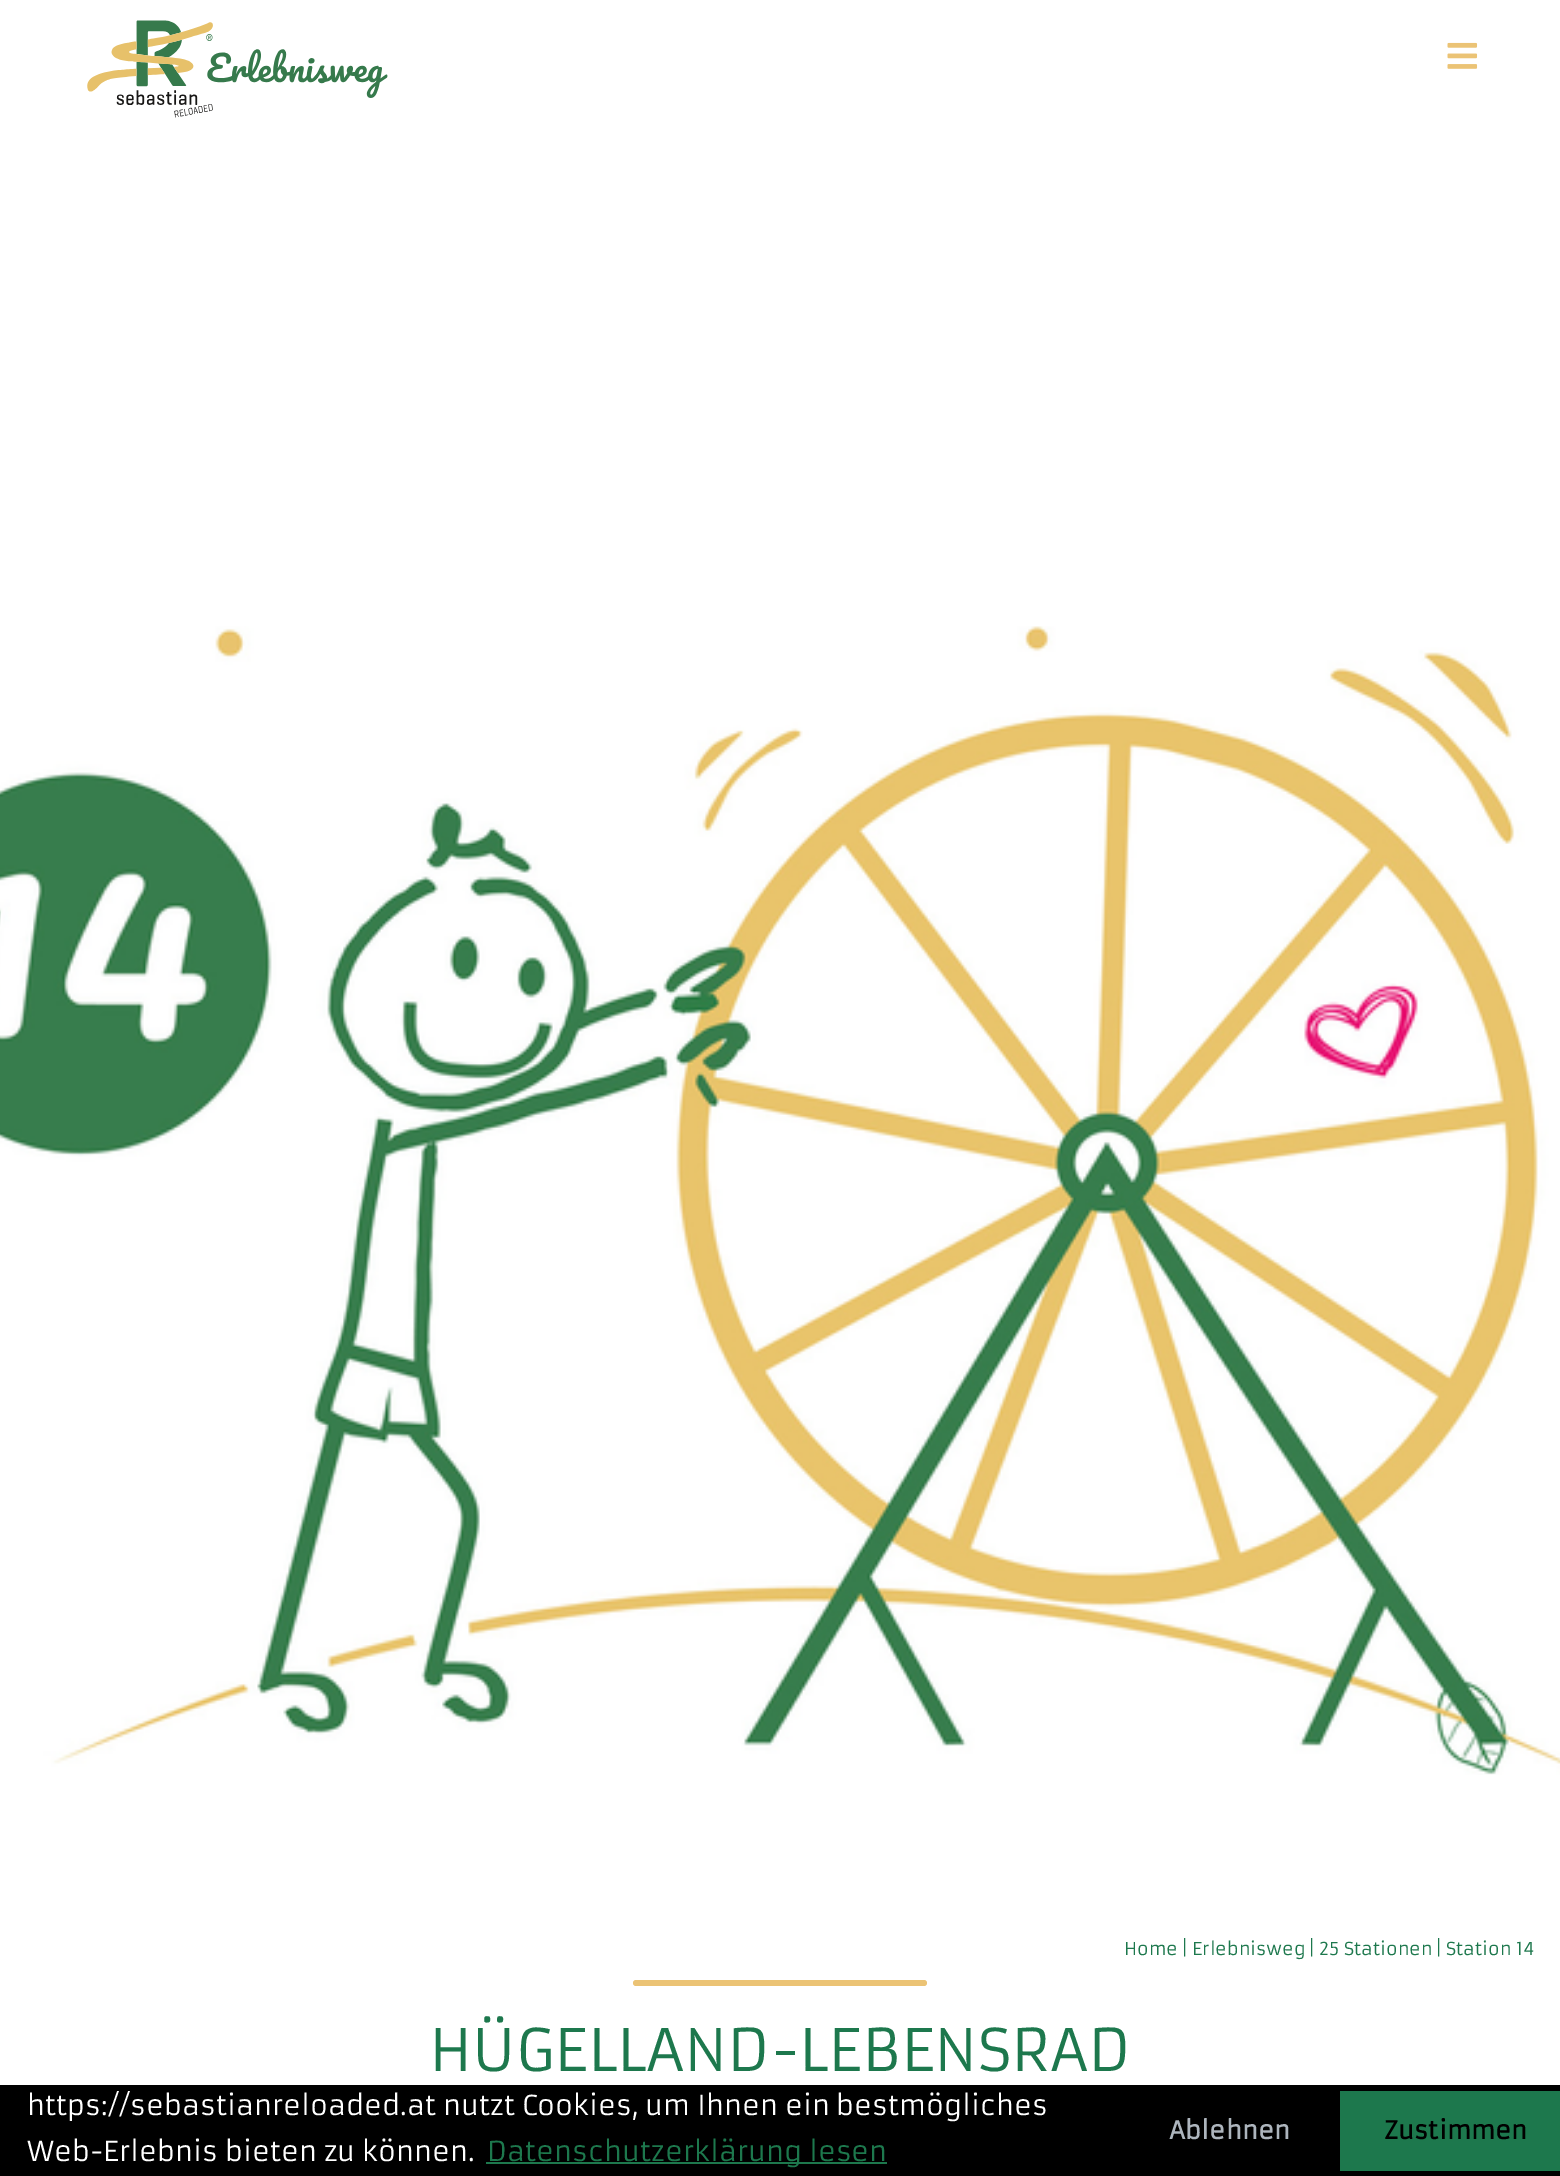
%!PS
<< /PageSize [1560 2176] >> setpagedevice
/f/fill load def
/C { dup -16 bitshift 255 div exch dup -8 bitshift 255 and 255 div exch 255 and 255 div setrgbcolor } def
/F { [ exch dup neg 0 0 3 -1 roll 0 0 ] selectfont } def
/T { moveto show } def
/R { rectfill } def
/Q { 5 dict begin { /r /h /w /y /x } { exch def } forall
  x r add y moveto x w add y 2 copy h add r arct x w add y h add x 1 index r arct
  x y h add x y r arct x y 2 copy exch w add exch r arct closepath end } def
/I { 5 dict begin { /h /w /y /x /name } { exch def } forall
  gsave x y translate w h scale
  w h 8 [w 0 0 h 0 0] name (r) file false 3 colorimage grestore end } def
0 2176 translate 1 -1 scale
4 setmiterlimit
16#FFFFFF C
0 0 1560 2176 R
(1.rgb) 87 20 301 98 I
(2.rgb) 0 626 1560 1149 I
(3.rgb) 1447 42 31 27 I
/Armata-Regular 17.5 F
16#1D784D C
(Home) 1124 1955 T
(|) 1181 1955 T
(Erlebnisweg) 1192 1955 T
(|) 1308 1955 T
(25 Stationen) 1319 1955 T
(|) 1435 1955 T
(Station 14) 1446 1955 T
16#EBC375 C
633 1980 294 6 3 Q f
/Armata-Regular 57.75 F
16#1D784D C
(HÜGELLAND-LEBENSRAD) 429 2071 T
16#000000 C
0 2085 1560 91 R
/Armata-Regular 27 F
16#FFFFFF C
(https://sebastianreloaded.at nutzt Cookies, um Ihnen ein bestmögliches) 27 2115 T
(Web-Erlebnis bieten zu können.) 27 2161 T
16#1D784D C
486 2162 401 2 R
(Datenschutzerklärung lesen) 487 2161 T
/Armata-Bold 24.25 F
16#ADB5BD C
(Ablehnen) 1169 2139 T
16#1D784D C
1340 2091 220 80 R
16#000000 C
(Zustimmen) 1384 2139 T
showpage
